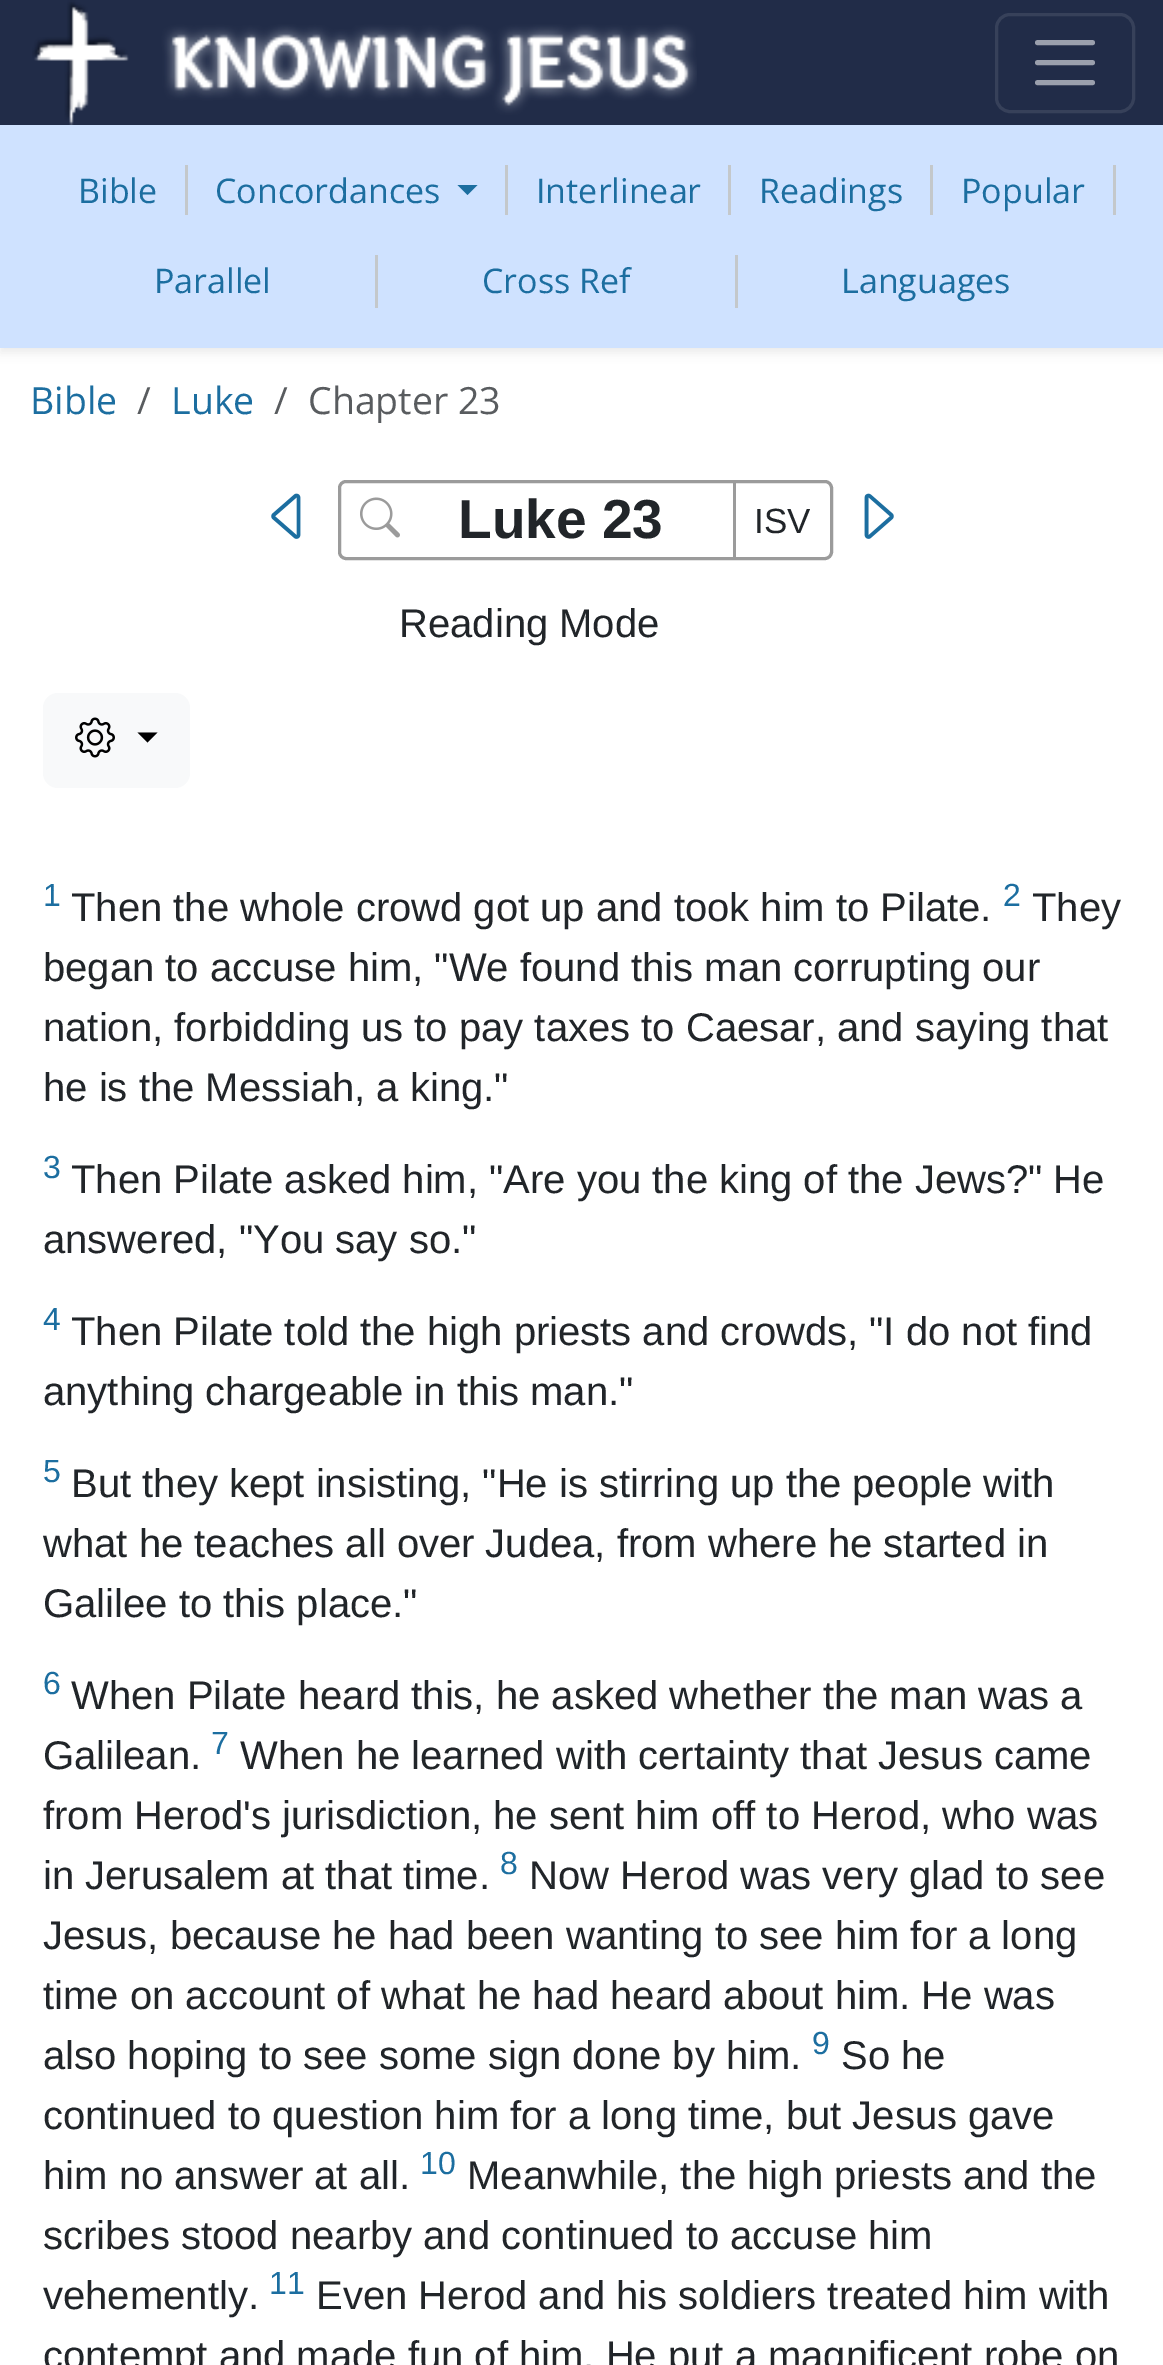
%!PS
<< /PageSize [1163 2365] /PageUsesTransparency true >> setpagedevice
/m/moveto load def
/l/rlineto load def
/z/closepath load def
/f/fill load def
/s/stroke load def
/w/setlinewidth load def
/C { dup -16 bitshift 255 div exch dup -8 bitshift 255 and 255 div exch 255 and 255 div setrgbcolor } def
/F { [ exch dup neg 0 0 3 -1 roll 0 0 ] selectfont } def
/T { moveto show } def
/R { rectfill } def
/A { dup .setfillconstantalpha .setstrokeconstantalpha } def
/Q { 5 dict begin { /r /h /w /y /x } { exch def } forall
  x r add y moveto x w add y 2 copy h add r arct x w add y h add x 1 index r arct
  x y h add x y r arct x y 2 copy exch w add exch r arct closepath end } def
/S { 12 dict begin { /a /b /q /h /w /y /x } { exch def } forall gsave /was 0 def
  9 -2 -9 { dup b mul 4 div /e exch def 1 sub .425 mul 2.718 exch exp 1 add a .99 .min exch div /now exch def
    1 1 now sub 1 was sub div sub A /was now def
    w h .min e 2 mul add 0 gt { x e sub y e sub w e 2 mul add h e 2 mul add
      q e add b .6 mul add w h .min 2 div e add .min 0 .max Q fill } if } for grestore end } def
/I { 5 dict begin { /h /w /y /x /name } { exch def } forall
  gsave x y translate w h scale
  w h 8 [w 0 0 h 0 0] name (r) file false 3 colorimage grestore end } def
0 .pushpdf14devicefilter
0 2365 translate 1 -1 scale
4 setmiterlimit
16#FFFFFF C
0 0 1163 2365 R
16#000000 C
0 130 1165 223 0 5 .07 S
16#212C48 C
0 0 1163 125 R
(1.rgb) 32 0 665 125 I
16#37415A C
3 w
996.5 14.5 137 97 13.5 Q s
16#9BA0AD C
5 w
1 setlinecap
1037.5 42.5 m 55 0 l 1037.5 62.5 m 55 0 l 1037.5 82.5 m 55 0 l s
16#CFE2FF C
0 125 1163 223 R
/OpenSans-Regular 34 F
16#1C6EA0 C
(Bible) 78 203 T
16#C4C8CB C
185 165 3 50 R
16#1C6EA0 C
(Concordances) 215 203 T
457.5 185 m 20 0 l -10 10 l z f
16#C4C8CB C
505 165 3 50 R
16#1C6EA0 C
(Interlinear) 536 203 T
16#C4C8CB C
728 165 3 50 R
16#1C6EA0 C
(Readings) 759 203 T
16#C4C8CB C
930 165 3 50 R
16#1C6EA0 C
(Popular) 961 203 T
16#C4C8CB C
1113 165 3 50 R
16#1C6EA0 C
(Parallel) 154 293 T
16#C4C8CB C
375 255 3 53 R
16#1C6EA0 C
(Cross Ref) 482 293 T
16#C4C8CB C
735 255 3 53 R
16#1C6EA0 C
(Languages) 841 293 T
/OpenSans-Regular 37.5 F
(Bible) 30 414 T
16#595C5F C
(/) 137 414 T
16#1C6EA0 C
(Luke) 171 414 T
16#595C5F C
(/) 274 414 T
(Chapter 23) 308 414 T
(2.rgb) 271 493 30 46 I
16#9B9B9B C
3 w
0 setlinecap
339.5 481.5 492 77 6.5 Q s
(3.rgb) 360 497 40 41 I
/LiberationSans-Bold 55 F
16#212529 C
(Luke 23) 458 538 T
16#9B9B9B C
733 483 3 75 R
/LiberationSans-Regular 35 F
16#212529 C
(ISV) 754 533 T
(4.rgb) 864 493 30 46 I
/LiberationSans-Regular 40 F
(Reading Mode) 399 637 T
16#F8F9FA C
43 693 147 95 15 Q f
(5.rgb) 75 717 40 41 I
16#000000 C
137.5 732.5 m 20 0 l -10 10 l z f
/LiberationSans-Regular 32 F
16#1C6EA0 C
(1) 43 906 T
/LiberationSans-Regular 40 F
16#212529 C
(Then the whole crowd got up and took him to Pilate.) 71 921 T
/LiberationSans-Regular 32 F
16#1C6EA0 C
(2) 1003 906 T
/LiberationSans-Regular 40 F
16#212529 C
(They) 1032 921 T
(began to accuse him, "We found this man corrupting our) 43 981 T
(nation, forbidding us to pay taxes to Caesar, and saying that) 43 1041 T
(he is the Messiah, a king.") 43 1101 T
/LiberationSans-Regular 32 F
16#1C6EA0 C
(3) 43 1178 T
/LiberationSans-Regular 40 F
16#212529 C
(Then Pilate asked him, "Are you the king of the Jews?" He) 71 1193 T
(answered, "You say so.") 43 1253 T
/LiberationSans-Regular 32 F
16#1C6EA0 C
(4) 43 1330 T
/LiberationSans-Regular 40 F
16#212529 C
(Then Pilate told the high priests and crowds, "I do not find) 71 1345 T
(anything chargeable in this man.") 43 1405 T
/LiberationSans-Regular 32 F
16#1C6EA0 C
(5) 43 1482 T
/LiberationSans-Regular 40 F
16#212529 C
(But they kept insisting, "He is stirring up the people with) 71 1497 T
(what he teaches all over Judea, from where he started in) 43 1557 T
(Galilee to this place.") 43 1617 T
/LiberationSans-Regular 32 F
16#1C6EA0 C
(6) 43 1694 T
/LiberationSans-Regular 40 F
16#212529 C
(When Pilate heard this, he asked whether the man was a) 71 1709 T
(Galilean.) 43 1769 T
/LiberationSans-Regular 32 F
16#1C6EA0 C
(7) 211 1754 T
/LiberationSans-Regular 40 F
16#212529 C
(When he learned with certainty that Jesus came) 240 1769 T
(from Herod's jurisdiction, he sent him off to Herod, who was) 43 1829 T
(in Jerusalem at that time.) 43 1889 T
/LiberationSans-Regular 32 F
16#1C6EA0 C
(8) 500 1874 T
/LiberationSans-Regular 40 F
16#212529 C
(Now Herod was very glad to see) 529 1889 T
(Jesus, because he had been wanting to see him for a long) 43 1949 T
(time on account of what he had heard about him. He was) 43 2009 T
(also hoping to see some sign done by him.) 43 2069 T
/LiberationSans-Regular 32 F
16#1C6EA0 C
(9) 812 2054 T
/LiberationSans-Regular 40 F
16#212529 C
(So he) 841 2069 T
(continued to question him for a long time, but Jesus gave) 43 2129 T
(him no answer at all.) 43 2189 T
/LiberationSans-Regular 32 F
16#1C6EA0 C
(10) 420 2174 T
/LiberationSans-Regular 40 F
16#212529 C
(Meanwhile, the high priests and the) 467 2189 T
(scribes stood nearby and continued to accuse him) 43 2249 T
(vehemently.) 43 2309 T
/LiberationSans-Regular 32 F
16#1C6EA0 C
(11) 269 2294 T
/LiberationSans-Regular 40 F
16#212529 C
(Even Herod and his soldiers treated him with) 316 2309 T
(contempt and made fun of him. He put a magnificent robe on) 43 2369 T
.poppdf14devicefilter showpage
